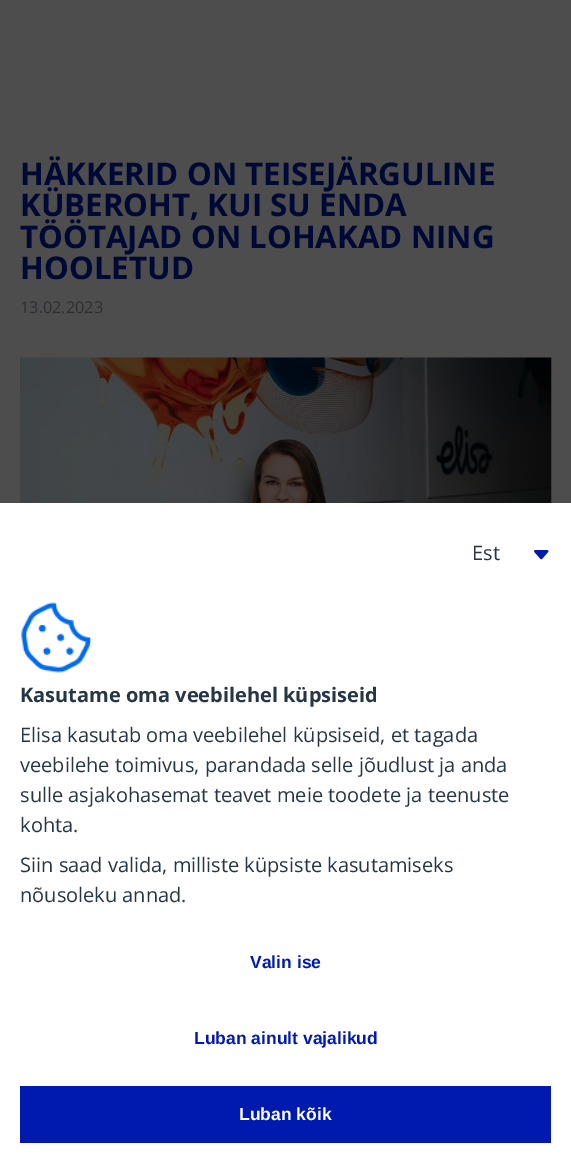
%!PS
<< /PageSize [571 1162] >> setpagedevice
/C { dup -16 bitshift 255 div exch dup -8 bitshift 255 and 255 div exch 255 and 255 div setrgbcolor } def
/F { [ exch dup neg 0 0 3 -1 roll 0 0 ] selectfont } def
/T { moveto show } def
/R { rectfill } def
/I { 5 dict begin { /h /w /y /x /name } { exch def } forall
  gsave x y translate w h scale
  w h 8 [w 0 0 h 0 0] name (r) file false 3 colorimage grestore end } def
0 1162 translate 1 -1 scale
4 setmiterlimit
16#4D4D4D C
0 0 571 1162 R
/OpenSans-Bold 31.25 F
16#000835 C
(HÄKKERID ON TEISEJÄRGULINE) 20 185 T
(KÜBEROHT, KUI SU ENDA) 20 216 T
(TÖÖTAJAD ON LOHAKAD NING) 20 248 T
(HOOLETUD) 20 279 T
/OpenSans-Regular 16.25 F
16#2C2F32 C
(13.02.2023) 20 313 T
(1.rgb) 20 357 532 146 I
16#FFFFFF C
0 503 571 659 R
/OpenSans-Regular 20 F
16#273645 C
(Est) 472 560 T
(2.rgb) 534 550 15 10 I
(3.rgb) 21 602 71 71 I
/OpenSans-Bold 20 F
(Kasutame oma veebilehel küpsiseid) 20 702 T
/OpenSans-Regular 20 F
(Elisa kasutab oma veebilehel küpsiseid, et tagada) 20 742 T
(veebilehe toimivus, parandada selle jõudlust ja anda) 20 772 T
(sulle asjakohasemat teavet meie toodete ja teenuste) 20 802 T
(kohta.) 20 832 T
(Siin saad valida, milliste küpsiste kasutamiseks) 20 872 T
(nõusoleku annad.) 20 902 T
/LiberationSans-Bold 17.5 F
16#0019AF C
(Valin ise) 250 968 T
(Luban ainult vajalikud) 194 1044 T
20 1086 531 57 R
16#FFFFFF C
(Luban kõik) 239 1120 T
showpage
